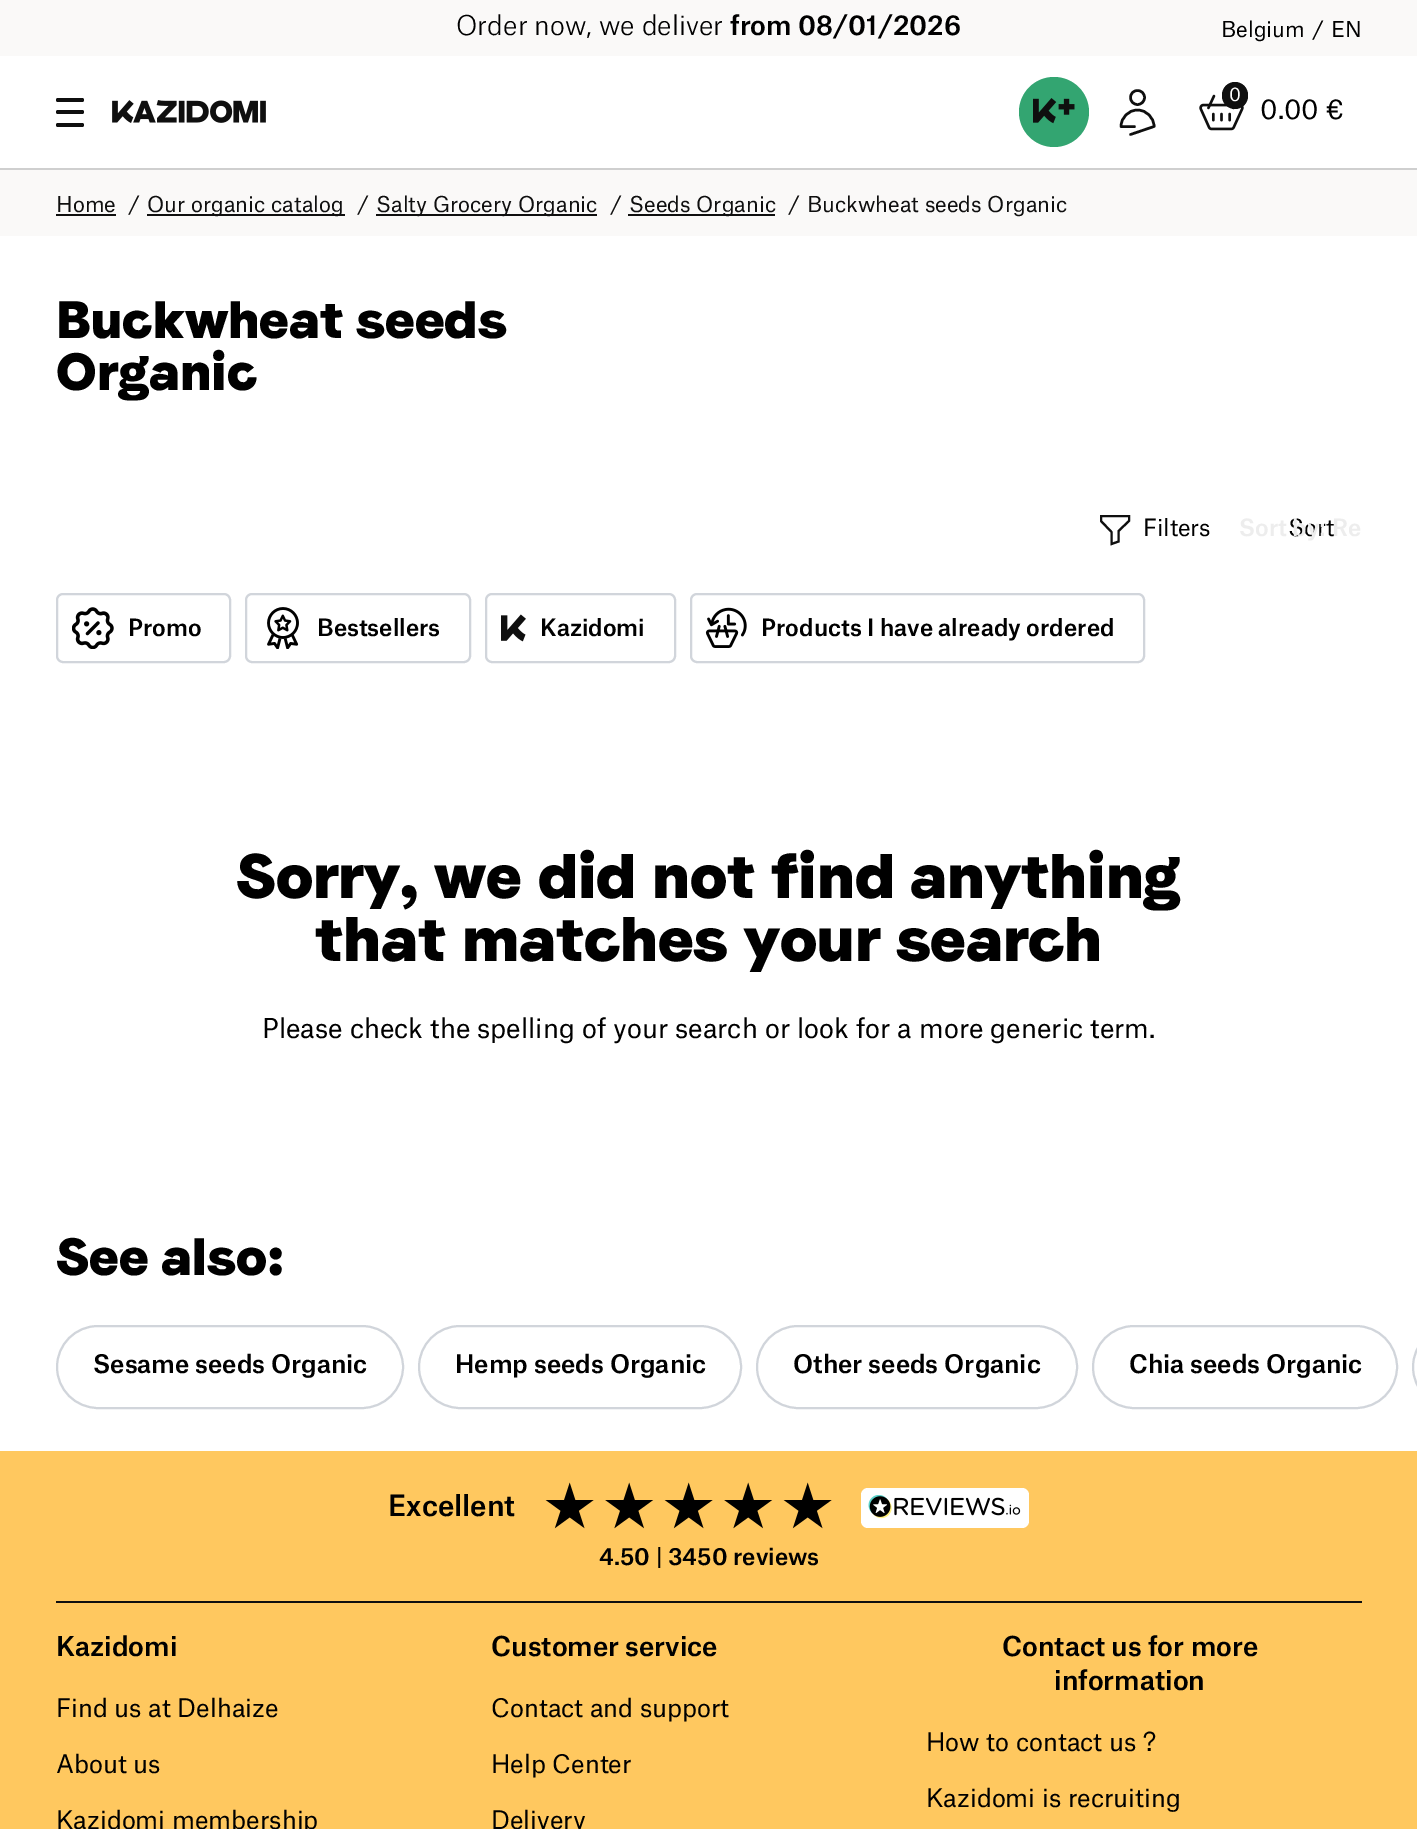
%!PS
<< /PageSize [1417 1829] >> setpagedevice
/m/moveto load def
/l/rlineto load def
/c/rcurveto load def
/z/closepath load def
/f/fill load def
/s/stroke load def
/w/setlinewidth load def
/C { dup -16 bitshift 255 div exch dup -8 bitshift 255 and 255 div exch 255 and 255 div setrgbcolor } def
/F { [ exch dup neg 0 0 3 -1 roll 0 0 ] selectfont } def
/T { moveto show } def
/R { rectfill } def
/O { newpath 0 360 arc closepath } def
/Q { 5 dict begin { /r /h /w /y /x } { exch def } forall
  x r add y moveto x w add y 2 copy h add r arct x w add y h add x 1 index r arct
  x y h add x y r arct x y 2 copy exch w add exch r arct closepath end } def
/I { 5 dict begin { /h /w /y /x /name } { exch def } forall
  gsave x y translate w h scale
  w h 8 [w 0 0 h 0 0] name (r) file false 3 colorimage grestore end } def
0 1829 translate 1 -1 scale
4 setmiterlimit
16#FFFFFF C
0 0 1417 1829 R
16#FAF9F8 C
0 0 1417 56 R
/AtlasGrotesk-Light 26.25 F
16#000000 C
(Order now, we deliver) 456 35 T
/AtlasGrotesk-Medium 26.25 F
(from 08/01/2026) 730 35 T
/AtlasGrotesk-Regular 21 F
(Belgium) 1221 37 T
(/) 1312 37 T
(EN) 1331 37 T
16#CFCFCF C
0 168 1417 2 R
16#0F0F0F C
56 98 28 4 2 Q f
56 110 28 4 2 Q f
56 123 28 4 2 Q f
(1.rgb) 112 100 154 23 I
16#33A571 C
1054 112 35 O f
(2.rgb) 1033 98 42 26 I
16#0F0F0F C
2.5 w
1 setlinecap
1 setlinejoin
1130.5 134.5 m 23.5 -8 l 0 -9 -7.5 -16.5 -16.5 -16.5 c -9 0 -16.5 7.5 -16.5 16.5 c 13.5 0 l s
0 setlinecap
0 setlinejoin
1137.5 97.5 7 O s
(3.rgb) 1199 94 45 37 I
1222 82 26 27 13 Q f
/AtlasGrotesk-Regular 18 F
16#FFFFFF C
(0) 1229 101 T
/AtlasGrotesk-Regular 26.25 F
16#000000 C
(0.00 €) 1260 119 T
16#FAF9F8 C
0 170 1417 66 R
/AtlasGrotesk-Regular 21 F
16#0F0F0F C
(Home) 56 212 T
56 214 60 2 R
(/) 128 212 T
147 214 198 2 R
(Our organic catalog) 147 212 T
(/) 357 212 T
376 214 221 2 R
(Salty Grocery Organic) 376 212 T
(/) 610 212 T
628 214 147 2 R
(Seeds Organic) 629 212 T
(/) 788 212 T
(Buckwheat seeds Organic) 807 212 T
/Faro-ExtraBold 52.5 F
16#000000 C
(Buckwheat seeds) 56 338 T
(Organic) 56 390 T
16#0F0F0F C
2.1 w
1129 516 m -28 0 l 0 5 l 10.5 11 l 0 12 l 7 -2.5 l 0 -10.5 l 10.5 -10 l z s
/AtlasGrotesk-Regular 22.75 F
16#000000 C
(Filters) 1143 536 T
(Sort) 1288 536 T
/AtlasGrotesk-Medium 22.75 F
16#EDEDED C
(Sort by: Re) 1239 536 T
16#D1D5DB C
2 w
57 594 173 68 6 Q s
(4.rgb) 72 607 42 42 I
16#000000 C
(Promo) 128 636 T
16#D1D5DB C
246 594 224 68 6 Q s
(5.rgb) 267 607 32 42 I
16#000000 C
(Bestsellers) 317 636 T
16#D1D5DB C
486 594 189 68 6 Q s
(6.rgb) 501 614 25 28 I
16#000000 C
(Kazidomi) 540 636 T
16#D1D5DB C
691 594 453 68 6 Q s
(7.rgb) 705 607 42 41 I
16#000000 C
(Products I have already ordered) 761 636 T
/Faro-ExtraBold 63 F
(Sorry, we did not find anything) 236 898 T
(that matches your search) 315 961 T
/AtlasGrotesk-Regular 26.25 F
(Please check the spelling of your search or look for a more generic term.) 262 1038 T
/Faro-ExtraBold 52.5 F
(See also:) 56 1275 T
16#D1D5DB C
57 1326 346 82 41 Q s
/AtlasGrotesk-Medium 24.5 F
16#000000 C
(Sesame seeds Organic) 93 1373 T
16#D1D5DB C
419 1326 322 82 41 Q s
16#000000 C
(Hemp seeds Organic) 455 1373 T
16#D1D5DB C
757 1326 320 82 41 Q s
16#000000 C
(Other seeds Organic) 793 1373 T
16#D1D5DB C
1093 1326 304 82 41 Q s
16#000000 C
(Chia seeds Organic) 1129 1373 T
16#D1D5DB C
1413 1326 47 82 41 Q s
16#FFC85F C
0 1451 1417 378 R
16#0F0F0F C
56 1601 1306 2 R
/AtlasGrotesk-Medium 28 F
16#000000 C
(Excellent) 388 1516 T
(8.rgb) 545 1482 49 47 I
(9.rgb) 605 1482 49 47 I
(8.rgb) 664 1482 49 47 I
(9.rgb) 724 1482 49 47 I
(8.rgb) 783 1482 49 47 I
16#FFFFFF C
861 1488 168 40 7 Q f
(10.rgb) 868 1495 153 24 I
/AtlasGrotesk-Medium 22.75 F
16#000000 C
(4.50 | 3450 reviews) 599 1565 T
/AtlasGrotesk-Medium 26.25 F
(Kazidomi) 56 1656 T
/AtlasGrotesk-Regular 24.5 F
(Find us at Delhaize) 56 1717 T
(About us) 56 1773 T
(Kazidomi membership) 56 1829 T
/AtlasGrotesk-Medium 26.25 F
(Customer service) 491 1656 T
/AtlasGrotesk-Regular 24.5 F
(Contact and support) 491 1717 T
(Help Center) 491 1773 T
(Delivery) 491 1829 T
/AtlasGrotesk-Medium 26.25 F
(Contact us for more) 1002 1656 T
(information) 1054 1690 T
/AtlasGrotesk-Regular 24.5 F
(How to contact us ?) 926 1751 T
(Kazidomi is recruiting) 926 1807 T
showpage
